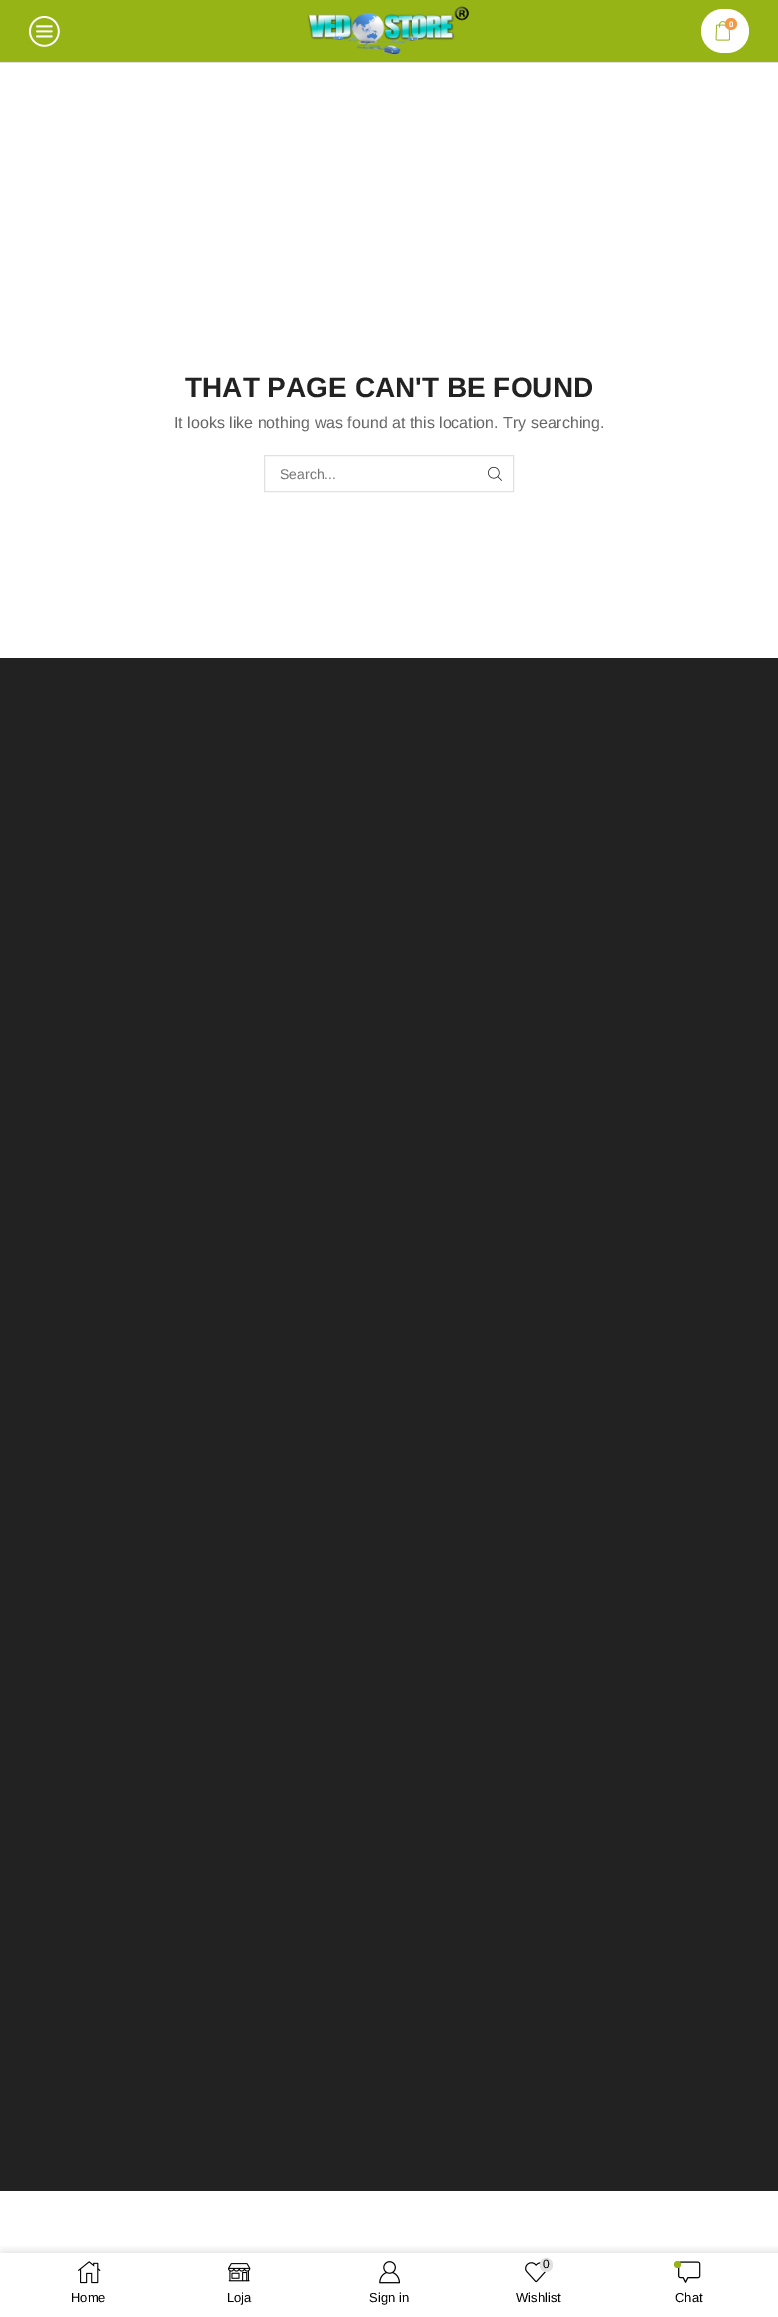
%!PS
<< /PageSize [778 2317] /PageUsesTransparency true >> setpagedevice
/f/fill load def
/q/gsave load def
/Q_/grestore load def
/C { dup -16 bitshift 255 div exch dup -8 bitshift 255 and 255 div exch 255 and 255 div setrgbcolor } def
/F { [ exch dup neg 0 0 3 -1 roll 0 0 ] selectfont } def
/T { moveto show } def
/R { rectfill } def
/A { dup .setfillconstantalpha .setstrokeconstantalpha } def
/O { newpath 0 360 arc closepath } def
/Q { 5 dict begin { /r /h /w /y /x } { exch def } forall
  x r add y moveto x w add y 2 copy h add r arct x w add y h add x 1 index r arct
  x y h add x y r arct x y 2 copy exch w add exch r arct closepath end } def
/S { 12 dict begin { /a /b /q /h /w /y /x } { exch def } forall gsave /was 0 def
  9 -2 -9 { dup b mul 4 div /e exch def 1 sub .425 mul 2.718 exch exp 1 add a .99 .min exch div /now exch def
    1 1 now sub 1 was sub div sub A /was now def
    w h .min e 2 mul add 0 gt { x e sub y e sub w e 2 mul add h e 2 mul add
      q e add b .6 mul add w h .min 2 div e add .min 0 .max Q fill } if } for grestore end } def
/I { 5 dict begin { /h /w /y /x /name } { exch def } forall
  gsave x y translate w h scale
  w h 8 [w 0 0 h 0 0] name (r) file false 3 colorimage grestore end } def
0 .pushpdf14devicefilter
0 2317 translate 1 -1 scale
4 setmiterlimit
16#FFFFFF C
0 0 778 2317 R
16#96B416 C
0 0 778 62 R
16#E1E1E1 C
0 62 778 1 R
(1.rgb) 29 16 31 31 I
(2.rgb) 307 6 162 49 I
16#FFFFFF C
701 9 48 44 22 Q f
(3.rgb) 715 21 15 20 I
16#F69946 C
731 24 6 O f
/LiberationSans-Bold 8 F
16#FFFFFF C
(0) 729 27 T
/LiberationSans-Bold 28 F
16#222222 C
(THAT PAGE CAN'T BE FOUND) 185 397 T
/LiberationSans-Regular 16 F
16#666666 C
(It looks like nothing was found at this location. Try searching.) 174 428 T
16#E1E1E1 C
264.5 455.5 249 36 rectstroke
/LiberationSans-Regular 14 F
16#757575 C
(Search...) 280 479 T
(4.rgb) 488 466 14 15 I
16#222222 C
0 658 778 1533 R
q
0 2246 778 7 rectclip
16#000000 C
2 2253 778 64 0 6 .15 S
Q_
(5.rgb) 78 2261 23 23 I
/LiberationSans-Regular 13 F
16#000000 C
(Home) 71 2302 T
(6.rgb) 228 2263 23 19 I
(Loja) 227 2302 T
(7.rgb) 379 2261 21 23 I
(Sign in) 369 2302 T
(8.rgb) 525 2262 22 21 I
16#E1E1E1 C
540 2258 13 14 6.5 Q f
/LiberationSans-Regular 12 F
16#000000 C
(0) 543 2268 T
/LiberationSans-Regular 13 F
(Wishlist) 516 2302 T
(9.rgb) 678 2261 23 22 I
16#96B416 C
677.5 2264.5 3.5 O f
16#000000 C
(Chat) 675 2302 T
.poppdf14devicefilter showpage
